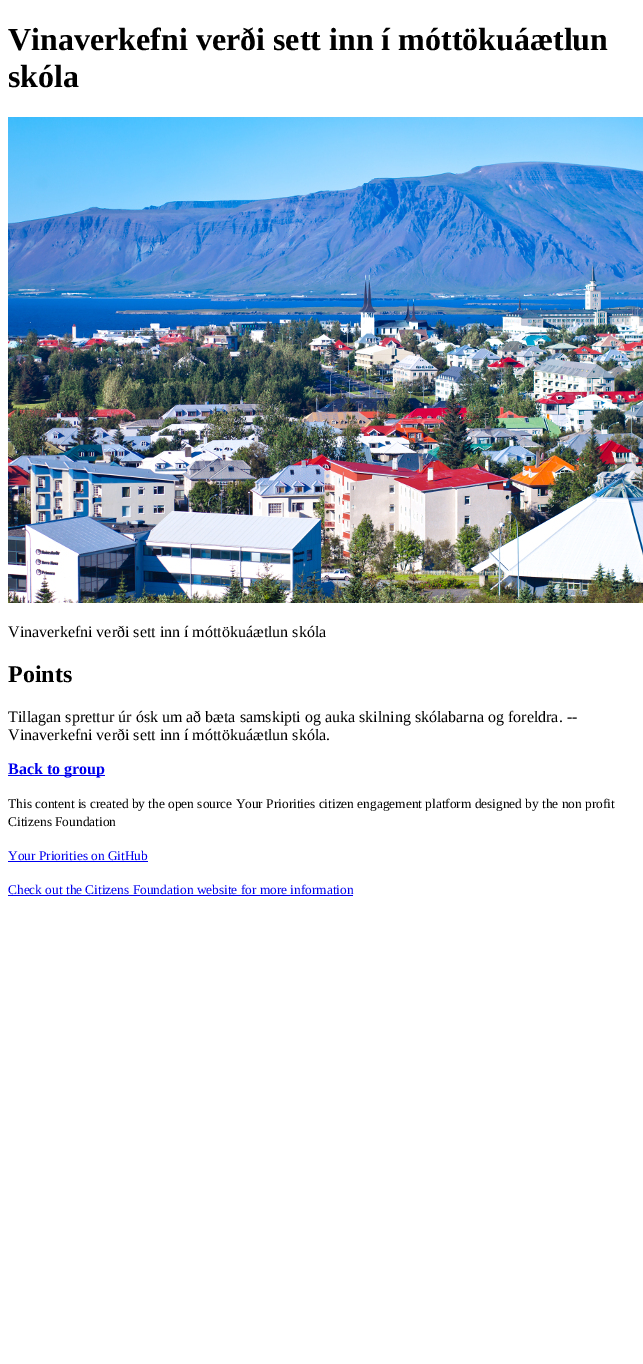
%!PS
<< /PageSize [643 1364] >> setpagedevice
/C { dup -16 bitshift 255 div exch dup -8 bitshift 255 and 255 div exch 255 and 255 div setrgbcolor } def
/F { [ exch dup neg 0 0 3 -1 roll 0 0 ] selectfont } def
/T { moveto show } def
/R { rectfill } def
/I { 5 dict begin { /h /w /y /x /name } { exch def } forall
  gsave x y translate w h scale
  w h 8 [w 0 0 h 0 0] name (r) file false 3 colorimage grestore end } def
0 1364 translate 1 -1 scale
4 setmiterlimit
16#FFFFFF C
0 0 643 1364 R
/LiberationSerif-Bold 32 F
16#000000 C
(Vinaverkefni verði sett inn í móttökuáætlun) 8 50 T
(skóla) 8 87 T
(1.rgb) 8 117 635 486 I
/LiberationSerif-Regular 16 F
(Vinaverkefni verði sett inn í móttökuáætlun skóla) 8 637 T
/LiberationSerif-Bold 24 F
(Points) 8 682 T
/LiberationSerif-Regular 16 F
(Tillagan sprettur úr ósk um að bæta samskipti og auka skilning skólabarna og foreldra. --) 8 722 T
(Vinaverkefni verði sett inn í móttökuáætlun skóla.) 8 740 T
16#0000EE C
8 775 97 1 R
/LiberationSerif-Bold 16 F
(Back to group) 8 774 T
/LiberationSerif-Regular 13.35 F
16#000000 C
(This content is created by the open source Your Priorities citizen engagement platform designed by the non profit) 8 808 T
(Citizens Foundation) 8 826 T
16#0000EE C
(Your Priorities on GitHub) 8 860 T
8 861 140 1 R
(Check out the Citizens Foundation website for more information) 8 894 T
8 895 345 1 R
showpage
